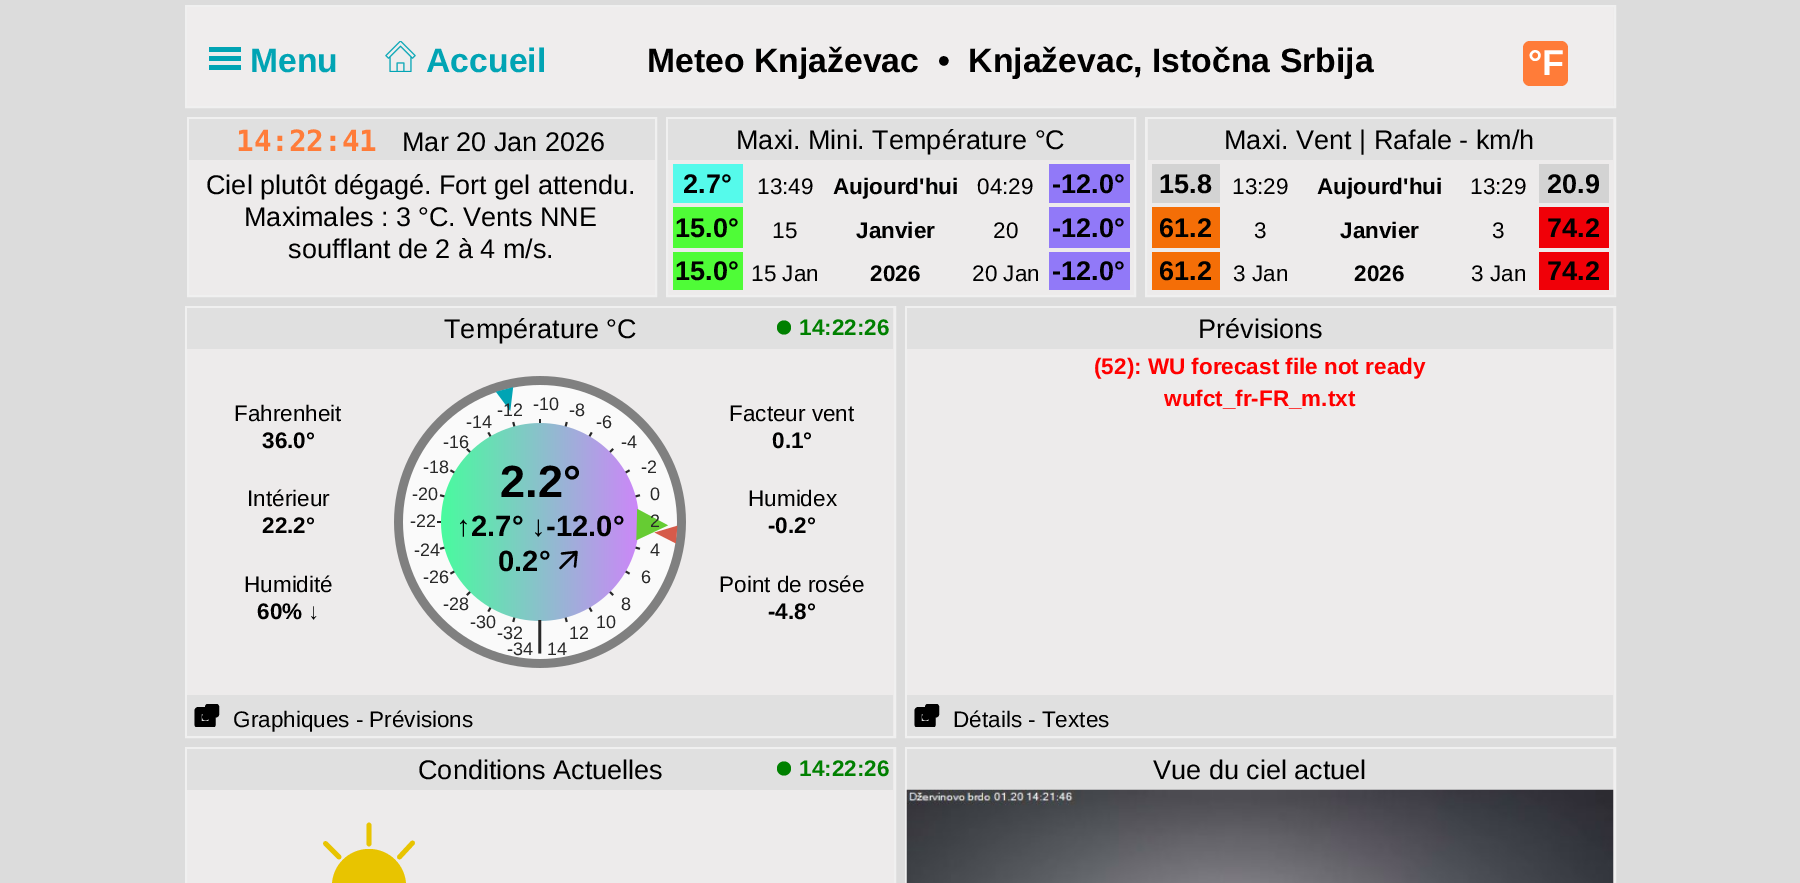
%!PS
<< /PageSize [1800 883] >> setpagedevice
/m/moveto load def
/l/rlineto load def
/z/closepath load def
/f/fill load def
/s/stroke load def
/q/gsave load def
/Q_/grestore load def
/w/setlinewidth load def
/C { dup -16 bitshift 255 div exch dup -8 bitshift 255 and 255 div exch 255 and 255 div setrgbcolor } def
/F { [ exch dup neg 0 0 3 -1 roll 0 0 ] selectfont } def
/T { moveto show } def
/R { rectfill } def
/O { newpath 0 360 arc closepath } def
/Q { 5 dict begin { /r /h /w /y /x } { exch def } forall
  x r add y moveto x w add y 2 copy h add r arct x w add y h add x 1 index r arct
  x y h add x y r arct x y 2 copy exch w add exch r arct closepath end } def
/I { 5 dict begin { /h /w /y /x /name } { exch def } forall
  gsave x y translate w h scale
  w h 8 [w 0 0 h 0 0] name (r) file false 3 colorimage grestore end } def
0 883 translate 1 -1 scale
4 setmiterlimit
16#DCDCDC C
0 0 1800 883 R
16#EDEBEB C
1613 7 1 99 R
16#F0F0F0 C
2 w
186 6 1429 101 rectstroke
16#EFEDED C
187 7 1426 99 R
16#01A4B4 C
209 47 32 5 R
/LiberationSans-Bold 33.75 F
(Menu) 250 72 T
209 56 32 5 R
209 65 32 5 R
(1.rgb) 385 41 31 31 I
(Accueil) 426 72 T
16#000000 C
(Meteo Knjaževac  •  Knjaževac, Istočna Srbija) 647 72 T
16#FF7C39 C
1523 41 45 45 7 Q f
/LiberationSans-Bold 36 F
16#FFFFFF C
(°F) 1528 75 T
16#EDEBEB C
189 160 466 135 R
16#F0F0F0 C
188 118 468 178 rectstroke
16#E0E0E0 C
189 119 466 41 R
/DejaVuSansMono-Bold 29.25 F
16#FF7C39 C
(14:22:41) 236 151 T
/LiberationSans-Regular 27 F
16#000000 C
(Mar 20 Jan 2026) 402 151 T
(Ciel plutôt dégagé. Fort gel attendu.) 206 194 T
(Maximales : 3 °C. Vents NNE) 244 226 T
(soufflant de 2 à 4 m/s.) 288 258 T
16#EDEBEB C
668 160 466 135 R
16#F0F0F0 C
667 118 468 178 rectstroke
16#E0E0E0 C
668 119 466 41 R
16#000000 C
(Maxi. Mini. Température °C) 736 149 T
16#55FAEB C
673 164 70 39 R
/LiberationSans-Bold 27 F
16#000000 C
(2.7°) 683 193 T
/LiberationSans-Regular 22.5 F
(13:49) 757 194 T
/LiberationSans-Bold 22.5 F
(Aujourd'hui) 833 194 T
/LiberationSans-Regular 22.5 F
(04:29) 977 194 T
16#9179F8 C
1049 164 81 39 R
/LiberationSans-Bold 27 F
16#000000 C
(-12.0°) 1052 193 T
16#4FFC37 C
673 207 70 41 R
16#000000 C
(15.0°) 675 237 T
/LiberationSans-Regular 22.5 F
(15) 772 238 T
/LiberationSans-Bold 22.5 F
(Janvier) 856 238 T
/LiberationSans-Regular 22.5 F
(20) 993 238 T
16#9179F8 C
1049 207 81 41 R
/LiberationSans-Bold 27 F
16#000000 C
(-12.0°) 1052 237 T
16#4FFC37 C
673 252 70 38 R
16#000000 C
(15.0°) 675 280 T
/LiberationSans-Regular 22.5 F
(15 Jan) 751 281 T
/LiberationSans-Bold 22.5 F
(2026) 870 281 T
/LiberationSans-Regular 22.5 F
(20 Jan) 972 281 T
16#9179F8 C
1049 252 81 38 R
/LiberationSans-Bold 27 F
16#000000 C
(-12.0°) 1052 280 T
16#EDEBEB C
1146 118 m 469 0 l 0 178 l -469 0 l z q f Q_
16#F0F0F0 C
s
16#E0E0E0 C
1148 119 465 41 R
/LiberationSans-Regular 27 F
16#000000 C
(Maxi. Vent | Rafale - km/h) 1224 149 T
16#D3D3D3 C
1152 164 68 39 R
/LiberationSans-Bold 27 F
16#000000 C
(15.8) 1159 193 T
/LiberationSans-Regular 22.5 F
(13:29) 1232 194 T
/LiberationSans-Bold 22.5 F
(Aujourd'hui) 1317 194 T
/LiberationSans-Regular 22.5 F
(13:29) 1470 194 T
16#D3D3D3 C
1539 164 70 39 R
/LiberationSans-Bold 27 F
16#000000 C
(20.9) 1547 193 T
16#F46E07 C
1152 207 68 41 R
16#000000 C
(61.2) 1159 237 T
/LiberationSans-Regular 22.5 F
(3) 1254 238 T
/LiberationSans-Bold 22.5 F
(Janvier) 1340 238 T
/LiberationSans-Regular 22.5 F
(3) 1492 238 T
16#F00008 C
1539 207 70 41 R
/LiberationSans-Bold 27 F
16#000000 C
(74.2) 1547 237 T
16#F46E07 C
1152 252 68 38 R
16#000000 C
(61.2) 1159 280 T
/LiberationSans-Regular 22.5 F
(3 Jan) 1233 281 T
/LiberationSans-Bold 22.5 F
(2026) 1354 281 T
/LiberationSans-Regular 22.5 F
(3 Jan) 1471 281 T
16#F00008 C
1539 252 70 38 R
/LiberationSans-Bold 27 F
16#000000 C
(74.2) 1547 280 T
16#EDEBEB C
186 307 m 709 0 l 0 430 l -709 0 l z q f Q_
16#F0F0F0 C
s
16#E0E0E0 C
187 308 706 41 R
/LiberationSans-Regular 27 F
16#000000 C
(Température °C) 444 338 T
/LiberationSans-Bold 22.5 F
16#008000 C
(14:22:26) 799 335 T
784 327.5 7 O f
/LiberationSans-Regular 22.5 F
16#000000 C
(Fahrenheit) 234 421 T
/LiberationSans-Bold 22.5 F
(36.0°) 262 448 T
/LiberationSans-Regular 22.5 F
(Intérieur) 247 506 T
/LiberationSans-Bold 22.5 F
(22.2°) 262 533 T
/LiberationSans-Regular 22.5 F
(Humidité) 244 592 T
/LiberationSans-Bold 22.5 F
(60% ↓) 257 619 T
(2.rgb) 394 376 292 292 I
/LiberationSans-Regular 18 F
16#282828 C
(-12) 497 416 T
(-10) 533 410 T
(-8) 569 416 T
(-14) 466 428 T
(-6) 596 428 T
(-16) 443 448 T
(-4) 621 448 T
(-18) 423 473 T
/LiberationSans-Bold 45 F
16#000000 C
(2.2°) 500 497 T
/LiberationSans-Regular 29.25 F
(↑) 456 536 T
/LiberationSans-Bold 29.25 F
(2.7°) 471 536 T
/LiberationSans-Regular 29.25 F
(↓) 531 536 T
/LiberationSans-Bold 29.25 F
(-12.0°) 546 536 T
(0.2°) 498 571 T
2.3 w
1 setlinecap
560.5 568 m 16 -16 l 562 553.5 m 14.5 -1.5 l 575 566.5 m 1.5 -14.5 l s
/LiberationSans-Regular 18 F
16#282828 C
(-2) 641 473 T
(-20) 412 500 T
(0) 650 500 T
(-22) 410 527 T
(2) 650 527 T
(-24) 414 556 T
(4) 650 556 T
(-26) 423 583 T
(6) 641 583 T
(-28) 443 610 T
(8) 621 610 T
(-30) 470 628 T
(-32) 497 639 T
/LiberationSans-Regular 36 F
(|) 535 646 T
/LiberationSans-Regular 18 F
(12) 569 639 T
(10) 596 628 T
(-34) 507 655 T
(14) 547 655 T
/LiberationSans-Regular 22.5 F
16#000000 C
(Facteur vent) 729 421 T
/LiberationSans-Bold 22.5 F
(0.1°) 772 448 T
/LiberationSans-Regular 22.5 F
(Humidex) 748 506 T
/LiberationSans-Bold 22.5 F
(-0.2°) 768 533 T
/LiberationSans-Regular 22.5 F
(Point de rosée) 719 592 T
/LiberationSans-Bold 22.5 F
(-4.8°) 768 619 T
16#E0E0E0 C
187 695 706 41 R
/LiberationSans-Regular 22.5 F
16#000000 C
(Graphiques - Prévisions) 233 727 T
q
194 704 27 23 rectclip
7 w
1 setlinejoin
205.5 710.5 m -7.5 0 l 0 14 l 14 0 l 0 -7.5 l 208.5 707 m 7 0 l 0 7 l 215.5 707 m -10 10 l s
Q_
16#EDEBEB C
906 307 m 709 0 l 0 430 l -709 0 l z q f Q_
16#F0F0F0 C
2 w
0 setlinecap
s
16#E0E0E0 C
907 308 706 41 R
/LiberationSans-Regular 27 F
16#000000 C
(Prévisions) 1198 338 T
/LiberationSans-Bold 22.5 F
16#FF0000 C
(\(52\): WU forecast file not ready) 1094 374 T
(wufct_fr-FR_m.txt) 1164 406 T
16#E0E0E0 C
907 695 706 41 R
/LiberationSans-Regular 22.5 F
16#000000 C
(Détails - Textes) 953 727 T
q
914 704 27 23 rectclip
7 w
1 setlinecap
1 setlinejoin
925.5 710.5 m -7.5 0 l 0 14 l 14 0 l 0 -7.5 l 928.5 707 m 7 0 l 0 7 l 935.5 707 m -10 10 l s
Q_
16#EDEBEB C
186 748 m 709 0 l 0 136 l -709 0 l z q f Q_
16#F0F0F0 C
s
16#E0E0E0 C
187 749 706 41 R
/LiberationSans-Regular 27 F
16#000000 C
(Conditions Actuelles) 418 779 T
/LiberationSans-Bold 22.5 F
16#008000 C
(14:22:26) 799 776 T
784 768.5 7 O f
16#E8C400 C
4.7 w
1 setlinecap
339 857 m -13.5 -13.5 l s
369 825 m 0 19 l 412.5 843 m -13 14 l s
369 886 37 O f
16#EDEBEB C
1613 749 1 134 R
16#F0F0F0 C
2 w
0 setlinecap
906 748 709 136 rectstroke
16#E0E0E0 C
907 749 706 41 R
/LiberationSans-Regular 27 F
16#000000 C
(Vue du ciel actuel) 1153 779 T
(3.rgb) 906 789 708 94 I
showpage
